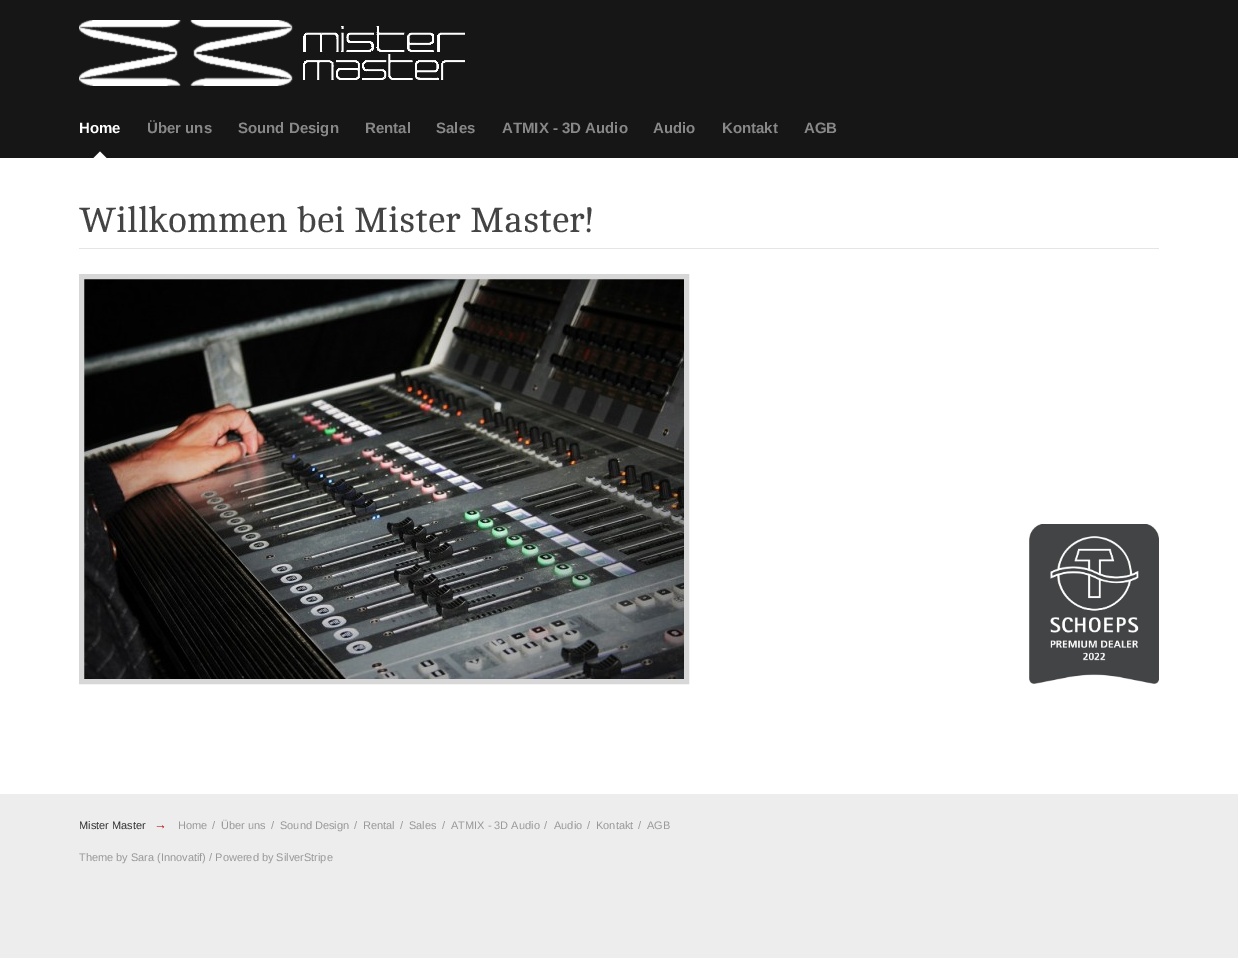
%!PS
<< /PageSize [1238 958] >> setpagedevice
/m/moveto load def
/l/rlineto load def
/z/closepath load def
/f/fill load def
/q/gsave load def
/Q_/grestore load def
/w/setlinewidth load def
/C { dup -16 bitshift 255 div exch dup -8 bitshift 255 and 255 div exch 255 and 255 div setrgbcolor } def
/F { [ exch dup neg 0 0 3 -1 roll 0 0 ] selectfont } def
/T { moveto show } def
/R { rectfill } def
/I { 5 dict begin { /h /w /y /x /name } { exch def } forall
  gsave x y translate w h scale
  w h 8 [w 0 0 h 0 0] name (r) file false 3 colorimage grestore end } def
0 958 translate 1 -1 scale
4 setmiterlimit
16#EDEDED C
0 0 1238 958 R
16#161616 C
0 0 1238 158 R
(1.rgb) 79 20 386 66 I
/LiberationSans-Bold 15 F
16#FFFFFF C
(Home) 79 133 T
q
69 20 1100 138 rectclip
107 158.5 m -14 0 l 7 -7 l z f
Q_
16#888888 C
(Über uns) 147 133 T
(Sound Design) 238 133 T
(Rental) 365 133 T
(Sales) 436 133 T
(ATMIX - 3D Audio) 502 133 T
(Audio) 653 133 T
(Kontakt) 722 133 T
(AGB) 804 133 T
16#FFFFFF C
0 158 1238 636 R
16#E5E5E5 C
79 248 1080 1 R
/Cambo-Regular 36 F
16#444444 C
(Willkommen bei Mister Master!) 79 232 T
(2.rgb) 84 279 600 400 I
16#D7D7D7 C
5 w
81.5 276.5 605 405 rectstroke
(3.rgb) 1029 524 130 160 I
/LiberationSans-Regular 11 F
16#333333 C
(Mister Master) 79 829 T
/LiberationSans-Regular 13 F
16#B80000 C
(→) 154 829 T
/LiberationSans-Regular 11 F
16#999999 C
(Home) 178 829 T
(/) 212 829 T
(Über uns) 221 829 T
(/) 271 829 T
(Sound Design) 280 829 T
(/) 354 829 T
(Rental) 363 829 T
(/) 400 829 T
(Sales) 409 829 T
(/) 442 829 T
(ATMIX - 3D Audio) 451 829 T
(/) 544 829 T
(Audio) 554 829 T
(/) 587 829 T
(Kontakt) 596 829 T
(/) 638 829 T
(AGB) 647 829 T
(Theme by Sara \(Innovatif\) / Powered by SilverStripe) 79 861 T
showpage
